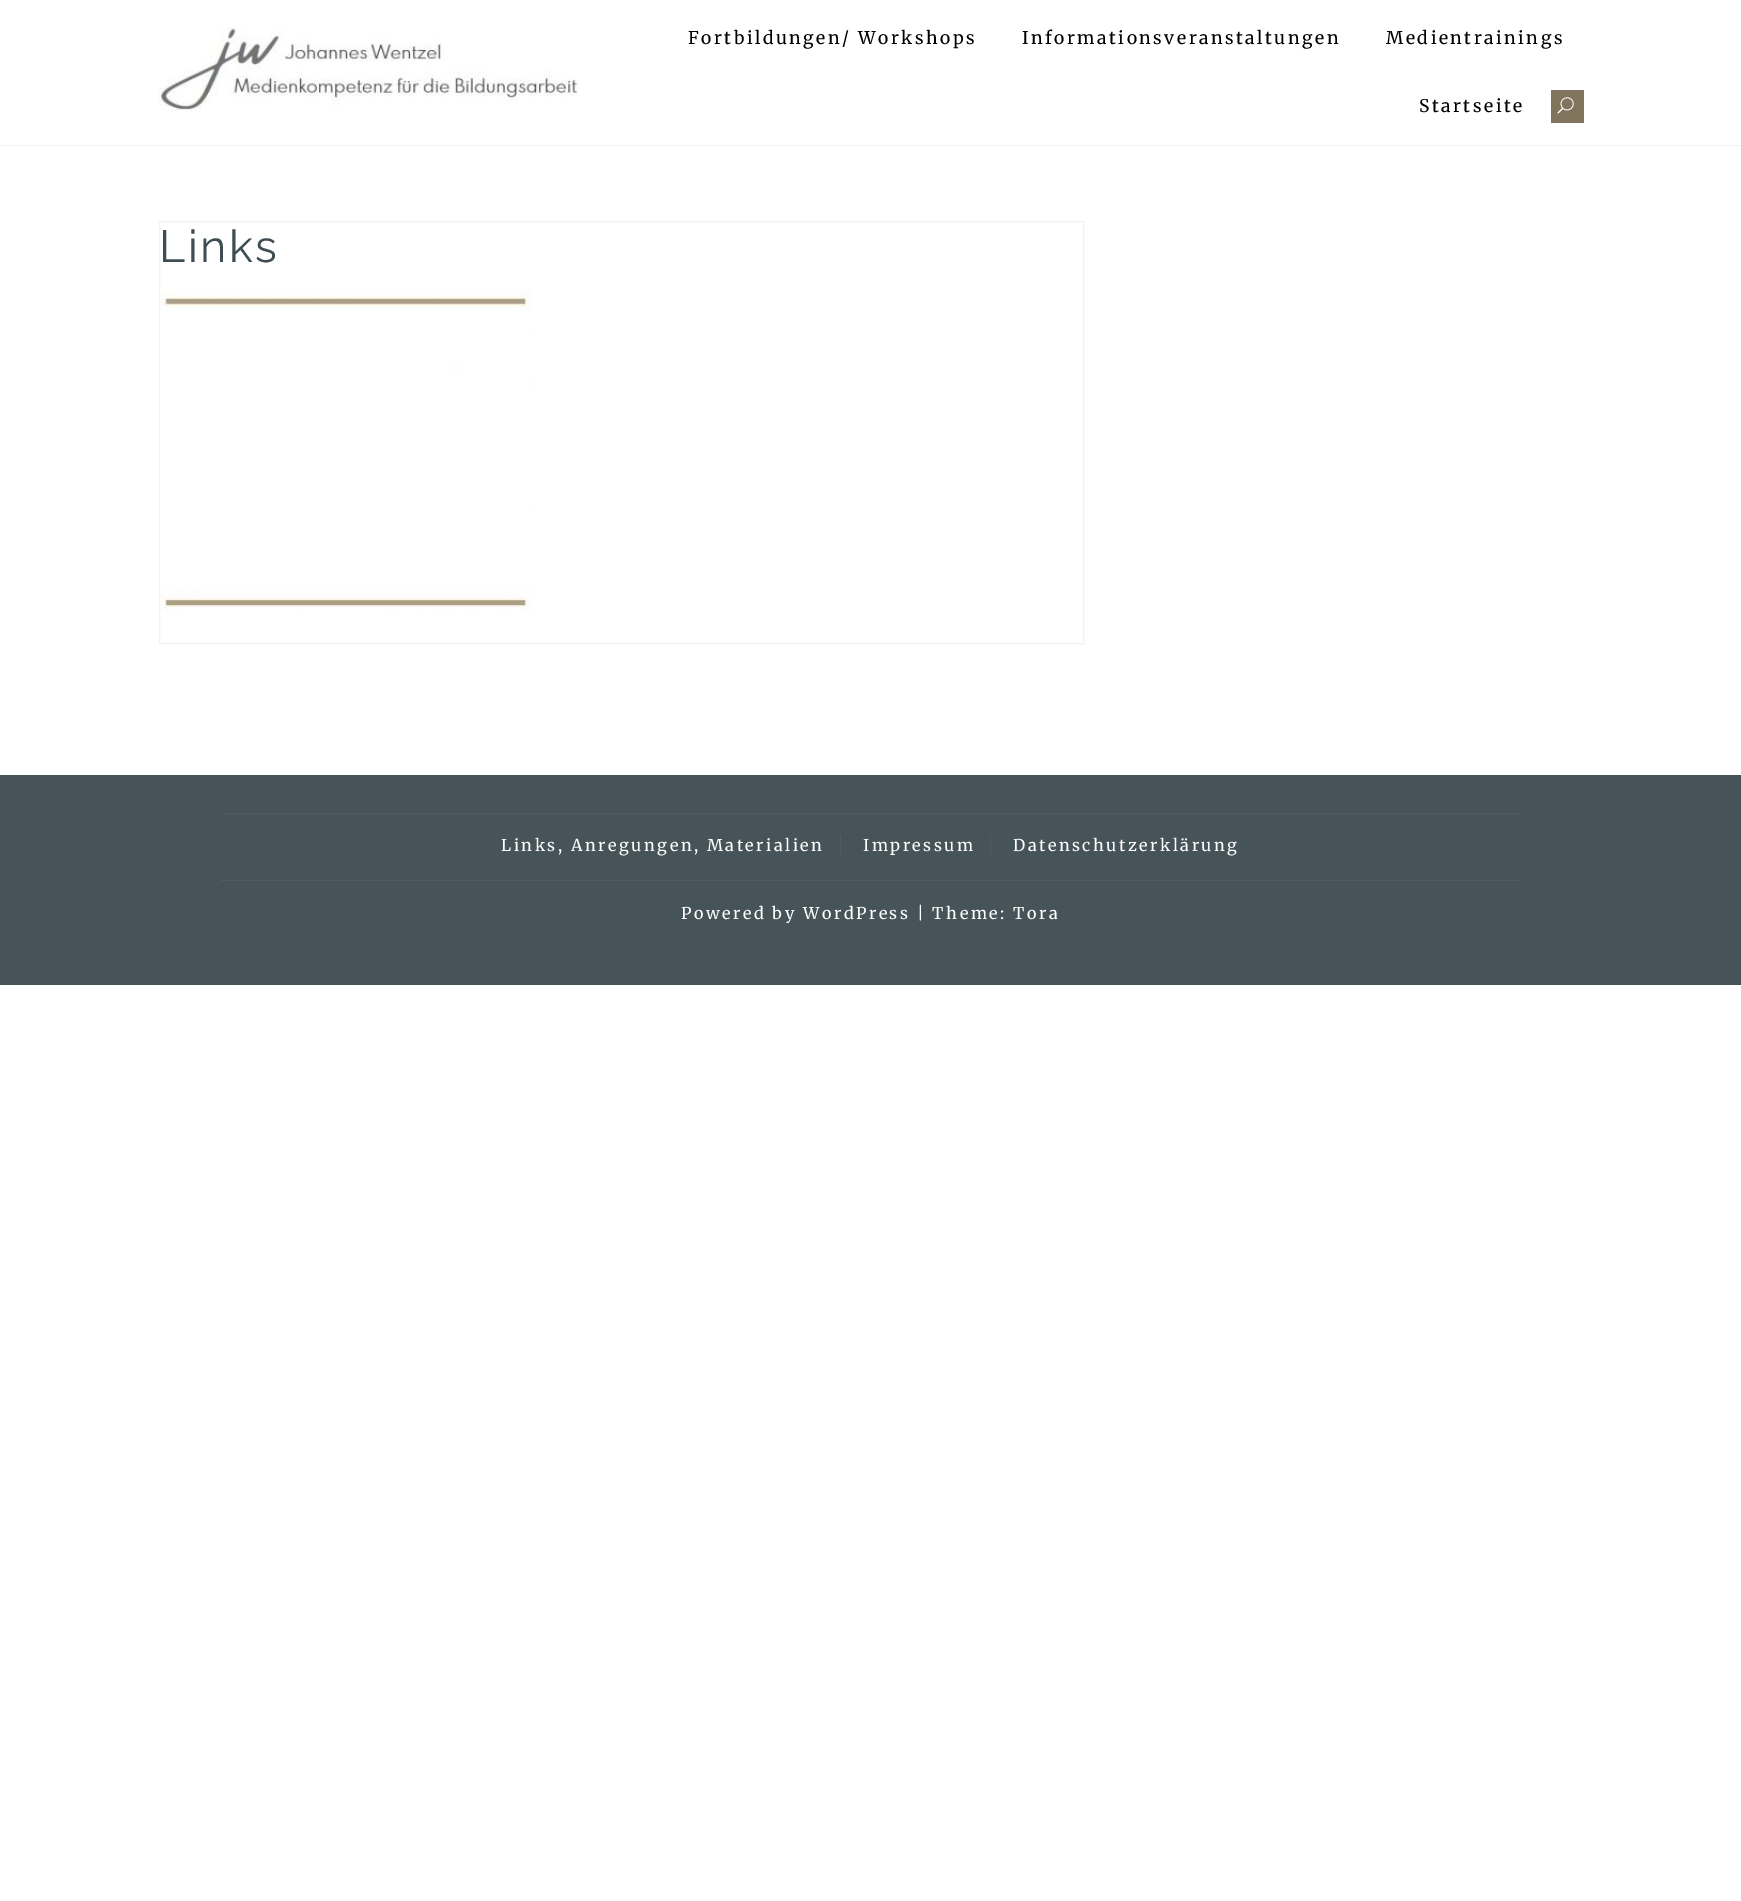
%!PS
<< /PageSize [1741 1901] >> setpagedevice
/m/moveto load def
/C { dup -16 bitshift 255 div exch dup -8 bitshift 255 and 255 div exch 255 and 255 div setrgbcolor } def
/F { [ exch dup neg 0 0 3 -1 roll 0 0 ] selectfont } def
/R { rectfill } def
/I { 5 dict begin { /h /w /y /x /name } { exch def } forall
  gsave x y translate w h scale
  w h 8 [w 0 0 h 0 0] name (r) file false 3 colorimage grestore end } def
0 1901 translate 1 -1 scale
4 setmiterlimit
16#FFFFFF C
0 0 1741 1901 R
16#F3F2F2 C
0 145 1741 1 R
(1.rgb) 158 28 420 84 I
/Merriweather-Regular 17.5 F
16#000000 C
688 44 m 2.5 0 (Fortbildungen/ Workshops) ashow
1022 44 m 2.5 0 (Informationsveranstaltungen) ashow
1386 44 m 2.5 0 (Medientrainings) ashow
1419 112 m 2.5 0 (Startseite) ashow
16#80745C C
1551 90 33 33 R
(2.rgb) 1557 97 17 17 I
16#F3F2F2 C
159.5 221.5 924 422 rectstroke
/Raleway-Regular 45 F
16#3E4C53 C
159 262 m 2.5 0 (Links) ashow
(3.rgb) 160 290 371 320 I
16#465359 C
0 775 1741 210 R
16#4F5C61 C
221 813 1300 1 R
/Merriweather-Regular 16.25 F
16#FFFFFF C
501 851 m 2.5 0 (Links, Anregungen, Materialien) ashow
16#4F5C61 C
840 835 1 21 R
16#FFFFFF C
863 851 m 2.5 0 (Impressum) ashow
16#4F5C61 C
990 835 1 21 R
16#FFFFFF C
1013 851 m 2.5 0 (Datenschutzerklärung) ashow
16#4F5C61 C
221 880 1300 1 R
16#FFFFFF C
681 919 m 2.5 0 (Powered by WordPress | Theme: Tora) ashow
showpage
